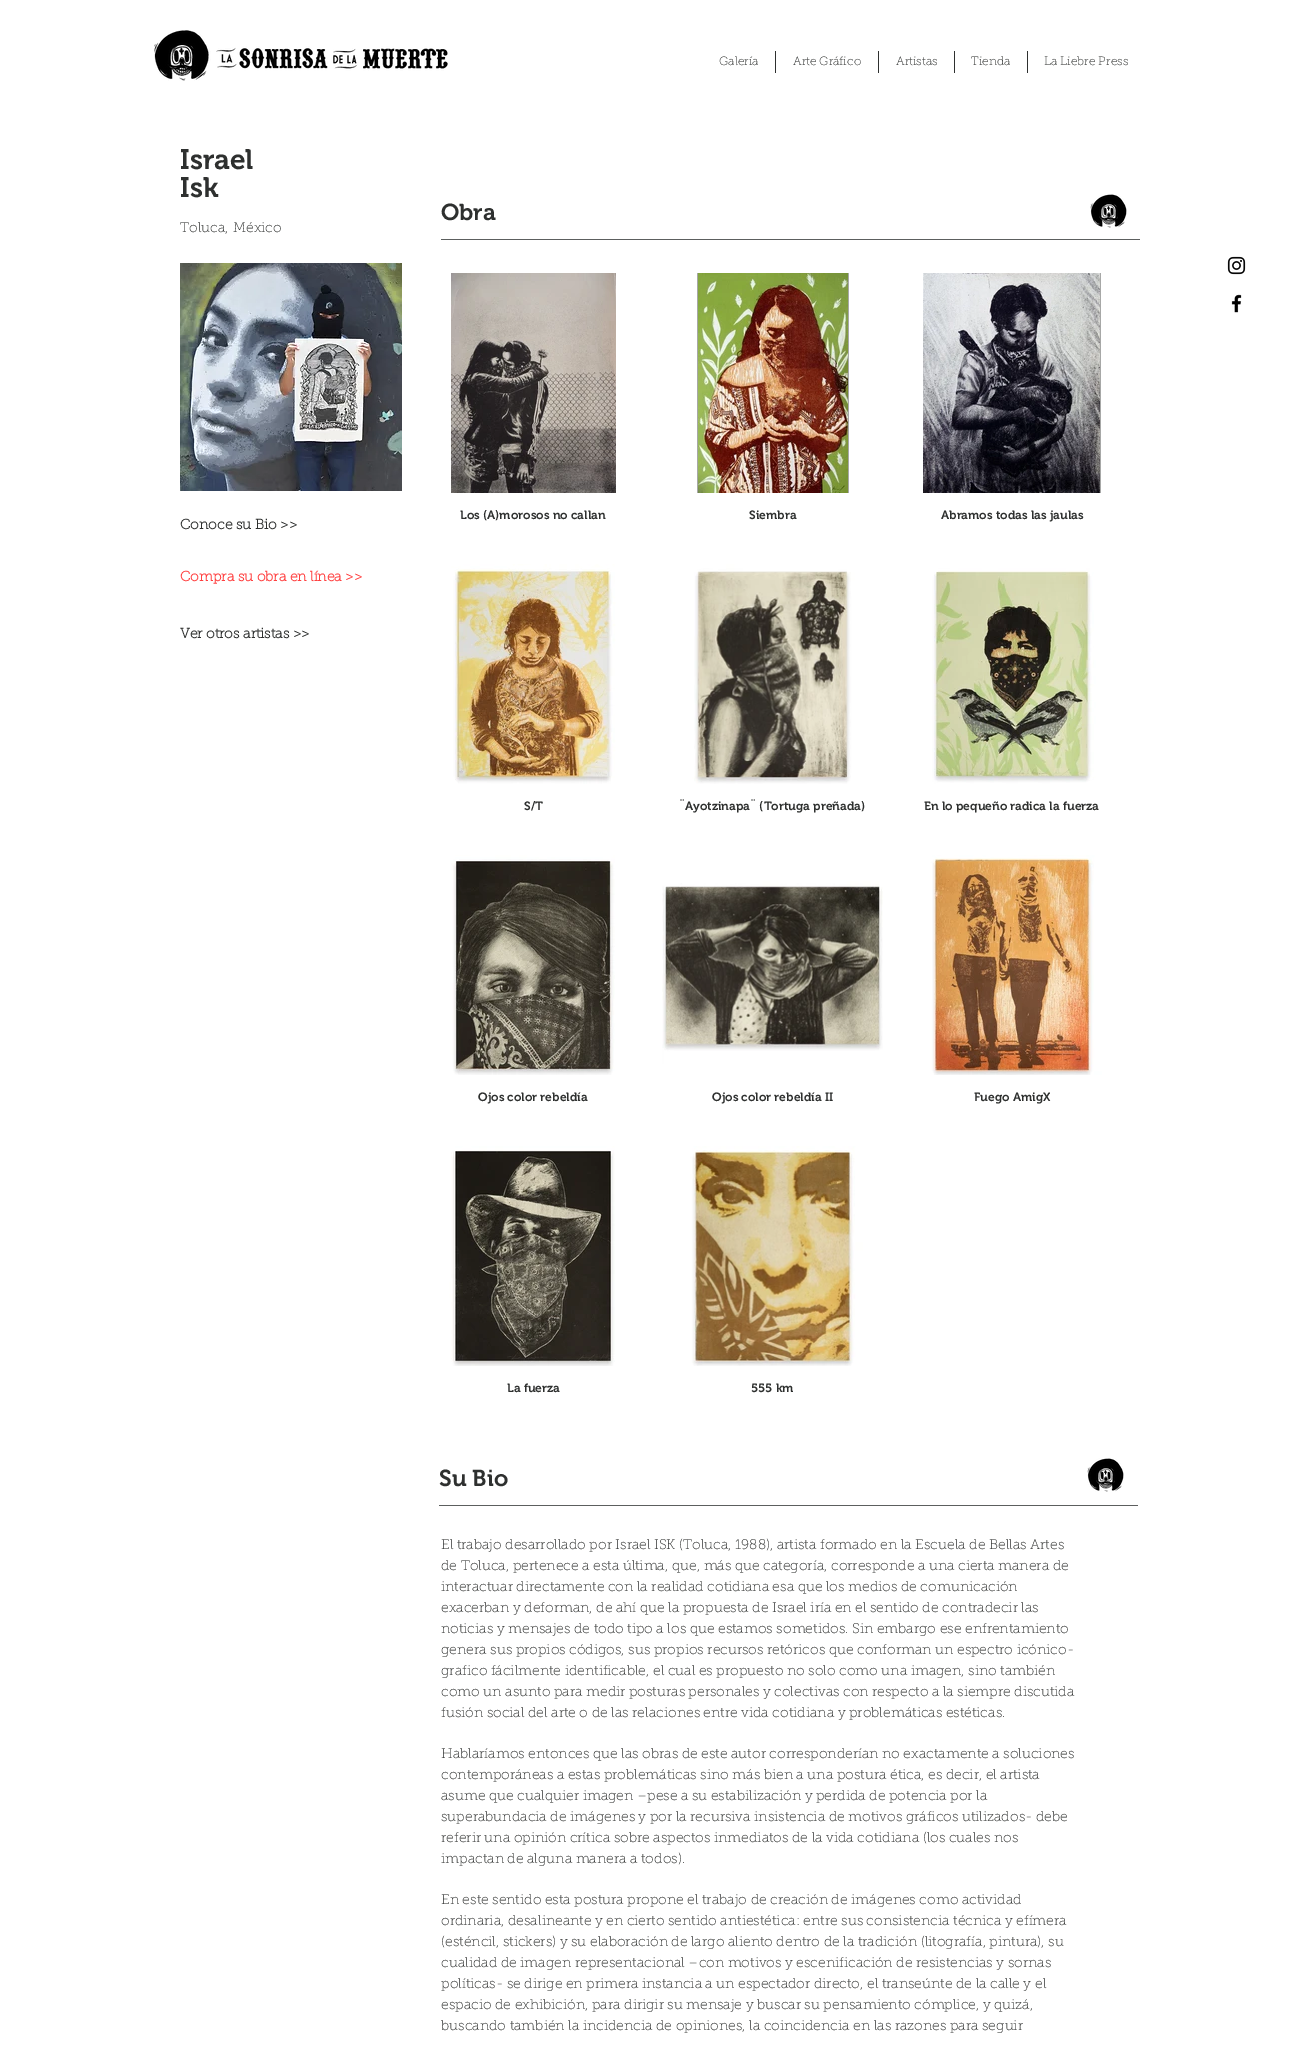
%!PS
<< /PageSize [1300 2045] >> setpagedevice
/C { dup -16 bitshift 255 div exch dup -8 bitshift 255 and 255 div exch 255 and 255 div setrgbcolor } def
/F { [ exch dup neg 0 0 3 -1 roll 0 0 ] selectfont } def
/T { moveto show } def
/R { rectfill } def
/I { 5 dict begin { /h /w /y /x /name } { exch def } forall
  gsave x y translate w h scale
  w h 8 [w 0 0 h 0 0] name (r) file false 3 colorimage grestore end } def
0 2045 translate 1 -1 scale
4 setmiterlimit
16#FFFFFF C
0 0 1300 2045 R
(1.rgb) 154 30 294 51 I
/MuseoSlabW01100-Thin 12 F
16#2E302F C
(Galería) 719 65 T
775 51 1 22 R
(Arte Gráfico) 793 65 T
878 51 1 22 R
(Artistas) 896 65 T
954 51 1 22 R
(Tienda) 971 65 T
1027 51 1 22 R
(La Liebre Press) 1044 65 T
/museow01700-SemiBold 28 F
(Israel) 180 169 T
(Isk) 180 197 T
/MuseoSlabW01100-Thin 14 F
(Toluca,) 180 232 T
(México) 233 232 T
(2.rgb) 180 263 222 228 I
/MuseoSlabW01100-Bold 14 F
(Conoce su Bio >>) 180 529 T
16#FF4040 C
(Compra su obra en línea >>) 180 581 T
16#2E302F C
(Ver otros artistas >>) 180 638 T
/museow01700-SemiBold 23 F
(Obra) 441 220 T
(3.rgb) 1090 194 37 34 I
16#5C5F5E C
441 239 699 1 R
(4.rgb) 451 273 165 220 I
/museow01700-SemiBold 12 F
16#2E302F C
(Los \(A\)morosos no callan) 460 519 T
16#A7A8A7 C
697 273 152 220 R
(5.rgb) 698 273 150 220 I
16#2E302F C
(Siembra) 749 519 T
16#A7A8A7 C
1100 273 1 220 R
(6.rgb) 923 273 177 220 I
16#2E302F C
(Abramos todas las jaulas) 941 519 T
(7.rgb) 423 564 220 220 I
(S/T) 524 810 T
(8.rgb) 662 564 221 220 I
(¨Ayotzinapa¨ \(Tortuga preñada\)) 679 810 T
(9.rgb) 902 564 220 220 I
(En lo pequeño radica la fuerza) 924 810 T
(10.rgb) 423 855 220 220 I
(Ojos color rebeldía) 478 1101 T
(11.rgb) 662 855 221 220 I
(Ojos color rebeldía II) 712 1101 T
(12.rgb) 902 855 220 220 I
(Fuego AmigX) 974 1101 T
(13.rgb) 423 1146 220 220 I
(La fuerza) 507 1392 T
(14.rgb) 662 1146 221 220 I
(555 km) 751 1392 T
/museow01700-SemiBold 23 F
(Su Bio) 439 1486 T
(3.rgb) 1087 1458 37 34 I
16#5C5F5E C
439 1505 699 1 R
/MuseoSlabW01100-Thin 14 F
16#2E302F C
(El trabajo desarrollado por Israel ISK \(Toluca, 1988\), artista formado en la Escuela de Bellas Artes) 441 1549 T
(de Toluca, pertenece a esta última, que, más que categoría, corresponde a una cierta manera de) 441 1570 T
(interactuar directamente con la realidad cotidiana esa que los medios de comunicación) 441 1591 T
(exacerban y deforman, de ahí que la propuesta de Israel iría en el sentido de contradecir las) 441 1612 T
(noticias y mensajes de todo tipo a los que estamos sometidos. Sin embargo ese enfrentamiento) 441 1633 T
(genera sus propios códigos, sus propios recursos retóricos que conforman un espectro icónico-) 441 1654 T
(grafico fácilmente identificable, el cual es propuesto no solo como una imagen, sino también) 441 1675 T
(como un asunto para medir posturas personales y colectivas con respecto a la siempre discutida) 441 1696 T
(fusión social del arte o de las relaciones entre vida cotidiana y problemáticas estéticas.) 441 1717 T
(Hablaríamos entonces que las obras de este autor corresponderían no exactamente a soluciones) 441 1758 T
(contemporáneas a estas problemáticas sino más bien a una postura ética, es decir, el artista) 441 1779 T
(asume que cualquier imagen –pese a su estabilización y perdida de potencia por la) 441 1800 T
(superabundacia de imágenes y por la recursiva insistencia de motivos gráficos utilizados- debe) 441 1821 T
(referir una opinión crítica sobre aspectos inmediatos de la vida cotidiana \(los cuales nos) 441 1842 T
(impactan de alguna manera a todos\).) 441 1863 T
(En este sentido esta postura propone el trabajo de creación de imágenes como actividad) 441 1904 T
(ordinaria, desalineante y en cierto sentido antiestética: entre sus consistencia técnica y efímera) 441 1925 T
(\(esténcil, stickers\) y su elaboración de largo aliento dentro de la tradición \(litografía, pintura\), su) 441 1946 T
(cualidad de imagen representacional –con motivos y escenificación de resistencias y sornas) 441 1967 T
(políticas- se dirige en primera instancia a un espectador directo, el transeúnte de la calle y el) 441 1988 T
(espacio de exhibición, para dirigir su mensaje y buscar su pensamiento cómplice, y quizá,) 441 2009 T
(buscando también la incidencia de opiniones, la coincidencia en las razones para seguir) 441 2030 T
(15.rgb) 1227 256 19 19 I
(16.rgb) 1231 294 11 19 I
showpage
